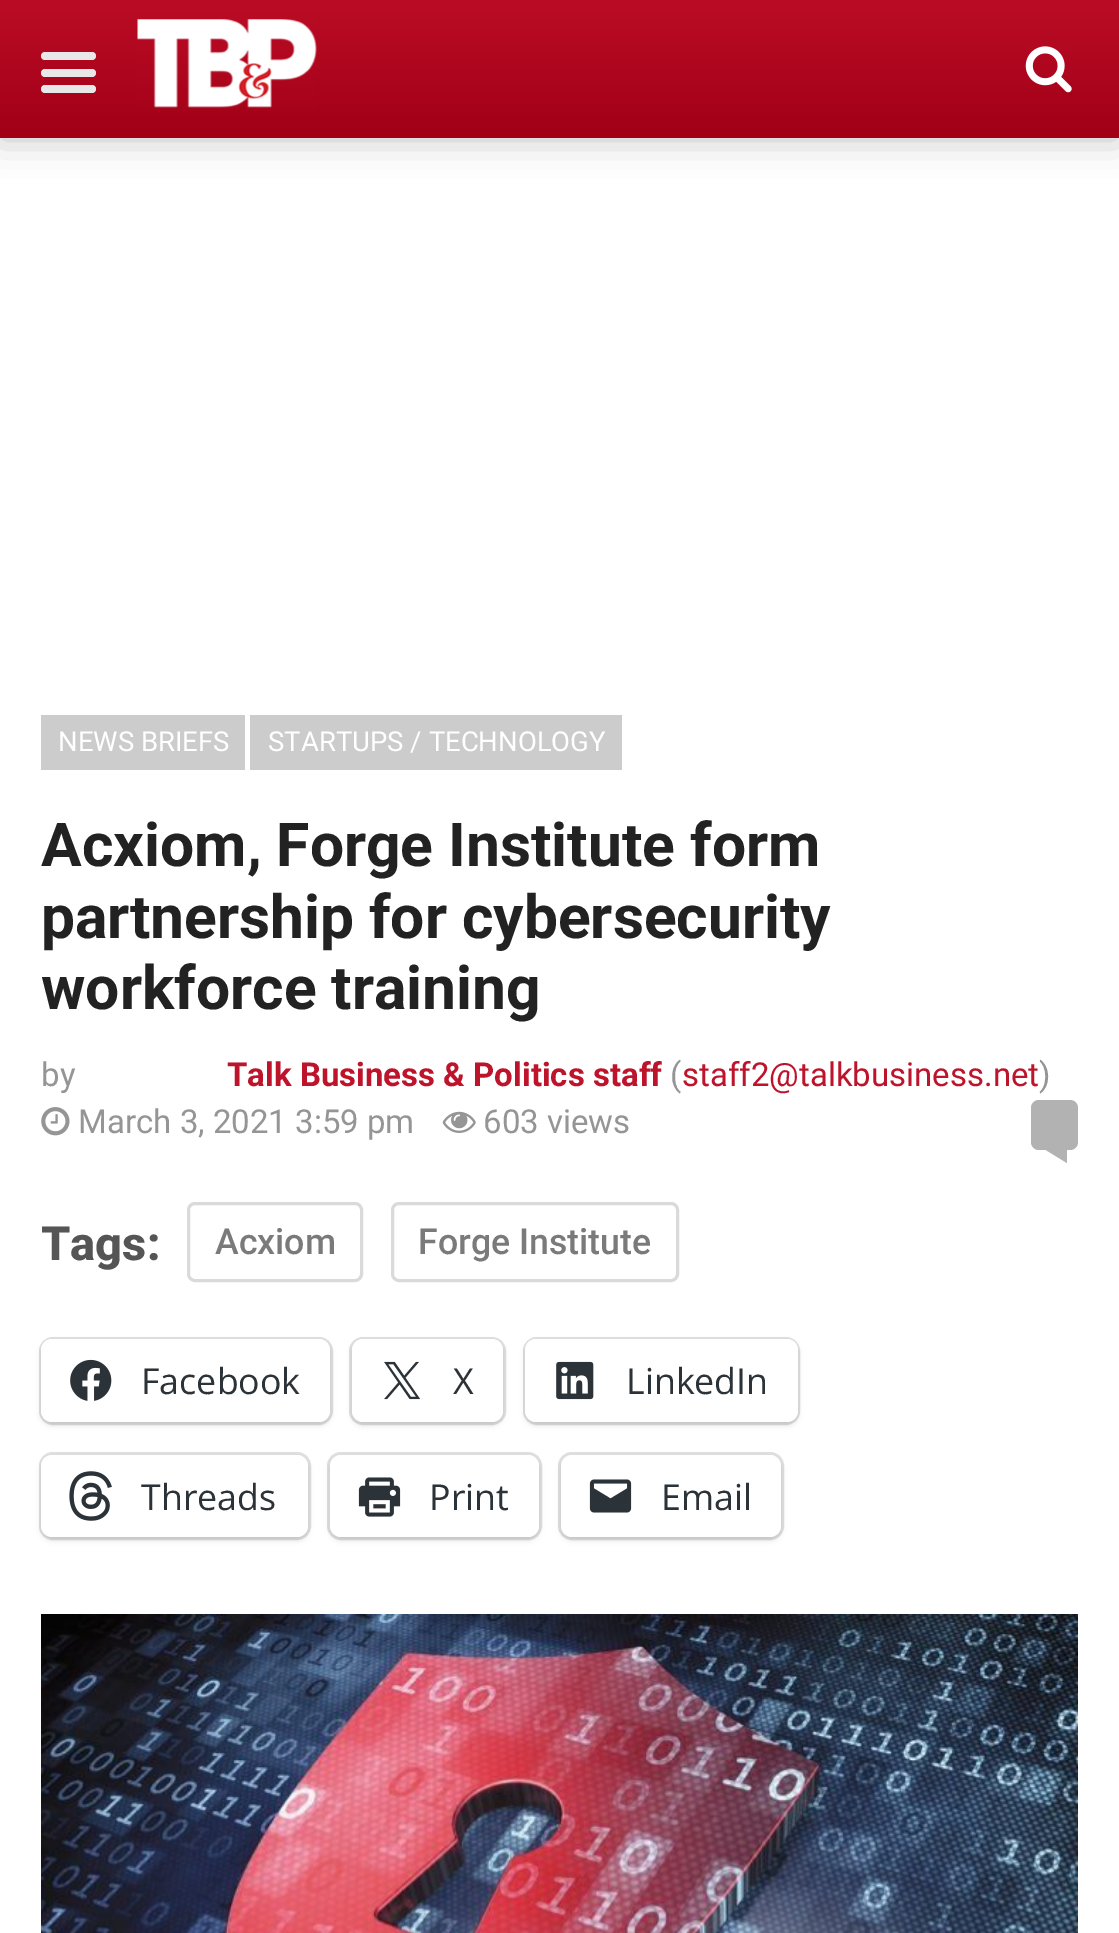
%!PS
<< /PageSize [1119 1933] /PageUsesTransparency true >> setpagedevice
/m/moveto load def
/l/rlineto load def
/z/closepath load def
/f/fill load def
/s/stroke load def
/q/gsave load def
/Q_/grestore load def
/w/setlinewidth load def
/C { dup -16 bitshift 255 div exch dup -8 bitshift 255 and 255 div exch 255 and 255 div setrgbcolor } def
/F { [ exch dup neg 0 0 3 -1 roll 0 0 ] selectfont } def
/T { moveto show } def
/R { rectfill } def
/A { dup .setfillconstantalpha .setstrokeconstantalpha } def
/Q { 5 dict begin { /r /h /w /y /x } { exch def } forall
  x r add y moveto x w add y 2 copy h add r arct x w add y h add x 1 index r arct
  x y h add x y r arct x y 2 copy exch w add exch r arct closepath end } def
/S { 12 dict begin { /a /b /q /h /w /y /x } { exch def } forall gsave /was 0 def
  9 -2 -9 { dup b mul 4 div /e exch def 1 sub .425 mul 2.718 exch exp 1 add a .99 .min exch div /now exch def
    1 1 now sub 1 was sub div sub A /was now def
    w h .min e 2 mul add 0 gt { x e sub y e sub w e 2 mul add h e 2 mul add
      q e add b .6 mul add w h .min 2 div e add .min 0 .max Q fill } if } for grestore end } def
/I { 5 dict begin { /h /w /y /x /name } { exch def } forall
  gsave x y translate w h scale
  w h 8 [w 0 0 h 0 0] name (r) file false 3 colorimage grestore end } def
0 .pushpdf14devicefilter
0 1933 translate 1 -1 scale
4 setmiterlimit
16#FFFFFF C
0 0 1119 1933 R
16#000000 C
0 0 1119 138 0 18 .25 S
q 0 0 m 1119 0 l 0 138 l -1119 0 l z clip newpath
<< /ShadingType 2 /ColorSpace /DeviceRGB /Coords [560 0 560 138] /Extend [true true] /Function << /FunctionType 2 /Domain [0 1] /C0 [.733 .047 .145] /C1 [.631 0 .09] /N 1 >> >> shfill Q_
16#E8E8E8 C
41 52 55 8 4 Q f
41 69 55 8 4 Q f
41 85 55 8 4 Q f
(1.rgb) 137 19 180 89 I
(2.rgb) 1025 46 47 47 I
16#CCCCCC C
41 715 204 55 R
/Roboto-Regular 27.5 F
16#FFFFFF C
(NEWS BRIEFS) 58 751 T
16#CCCCCC C
250 715 372 55 R
16#FFFFFF C
(STARTUPS / TECHNOLOGY) 268 751 T
/Roboto-Bold 60.5 F
16#222222 C
(Acxiom, Forge Institute form) 41 866 T
(partnership for cybersecurity) 41 938 T
(workforce training) 41 1009 T
/Roboto-Regular 33 F
16#959595 C
(by) 41 1086 T
/Roboto-Bold 33 F
16#BD142C C
(Talk Business & Politics staff) 227 1086 T
/Roboto-Regular 33 F
16#959595 C
(\() 670 1086 T
16#BD142C C
(staff2@talkbusiness.net) 682 1086 T
16#959595 C
(\)) 1039 1086 T
(3.rgb) 41 1107 29 29 I
(March 3, 2021 3:59 pm) 78 1133 T
(4.rgb) 442 1111 34 22 I
(603 views) 483 1133 T
16#B2B2B2 C
1031 1100 47 50 8 Q f
1067 1149.5 m 0 13.5 l -22 -13.5 l z f
/Roboto-ExtraBold 47 F
16#555555 C
(Tags:) 41 1260 T
16#DADADA C
3 w
188.5 1203.5 173 77 6.5 Q s
/Roboto-Medium 35.75 F
16#7A7A7A C
(Acxiom) 215 1254 T
16#DADADA C
392.5 1203.5 285 77 6.5 Q s
16#7A7A7A C
(Forge Institute) 418 1254 T
16#E0E0E0 C
40.5 1338.5 291 85 12.5 Q s
16#000000 C
41 1342 289 83 11 3 .12 S
16#FFFFFF C
41 1339 289 83 11 Q f
(5.rgb) 70 1359 42 42 I
/OpenSans-Regular 35.75 F
16#2C3338 C
(Facebook) 141 1394 T
16#E0E0E0 C
350.5 1338.5 154 85 12.5 Q s
16#000000 C
352 1342 151 83 11 3 .12 S
16#FFFFFF C
352 1339 151 83 11 Q f
(6.rgb) 384 1361 37 39 I
16#2C3338 C
(X) 453 1394 T
16#E0E0E0 C
524.5 1338.5 274 85 12.5 Q s
16#000000 C
525 1342 273 83 11 3 .12 S
16#FFFFFF C
525 1339 273 83 11 Q f
(7.rgb) 556 1361 38 39 I
16#2C3338 C
(LinkedIn) 626 1394 T
16#E0E0E0 C
40.5 1453.5 269 85 12.5 Q s
16#000000 C
41 1458 267 82 11 3 .12 S
16#FFFFFF C
41 1455 267 82 11 Q f
(8.rgb) 69 1471 43 50 I
16#2C3338 C
(Threads) 141 1510 T
16#E0E0E0 C
328.5 1453.5 212 85 12.5 Q s
16#000000 C
330 1458 209 82 11 3 .12 S
16#FFFFFF C
330 1455 209 82 11 Q f
(9.rgb) 358 1477 43 40 I
16#2C3338 C
(Print) 429 1510 T
16#E0E0E0 C
559.5 1453.5 223 85 12.5 Q s
16#000000 C
561 1458 220 82 11 3 .12 S
16#FFFFFF C
561 1455 220 82 11 Q f
(10.rgb) 589 1479 43 34 I
16#2C3338 C
(Email) 661 1510 T
(11.rgb) 41 1614 1037 319 I
.poppdf14devicefilter showpage
